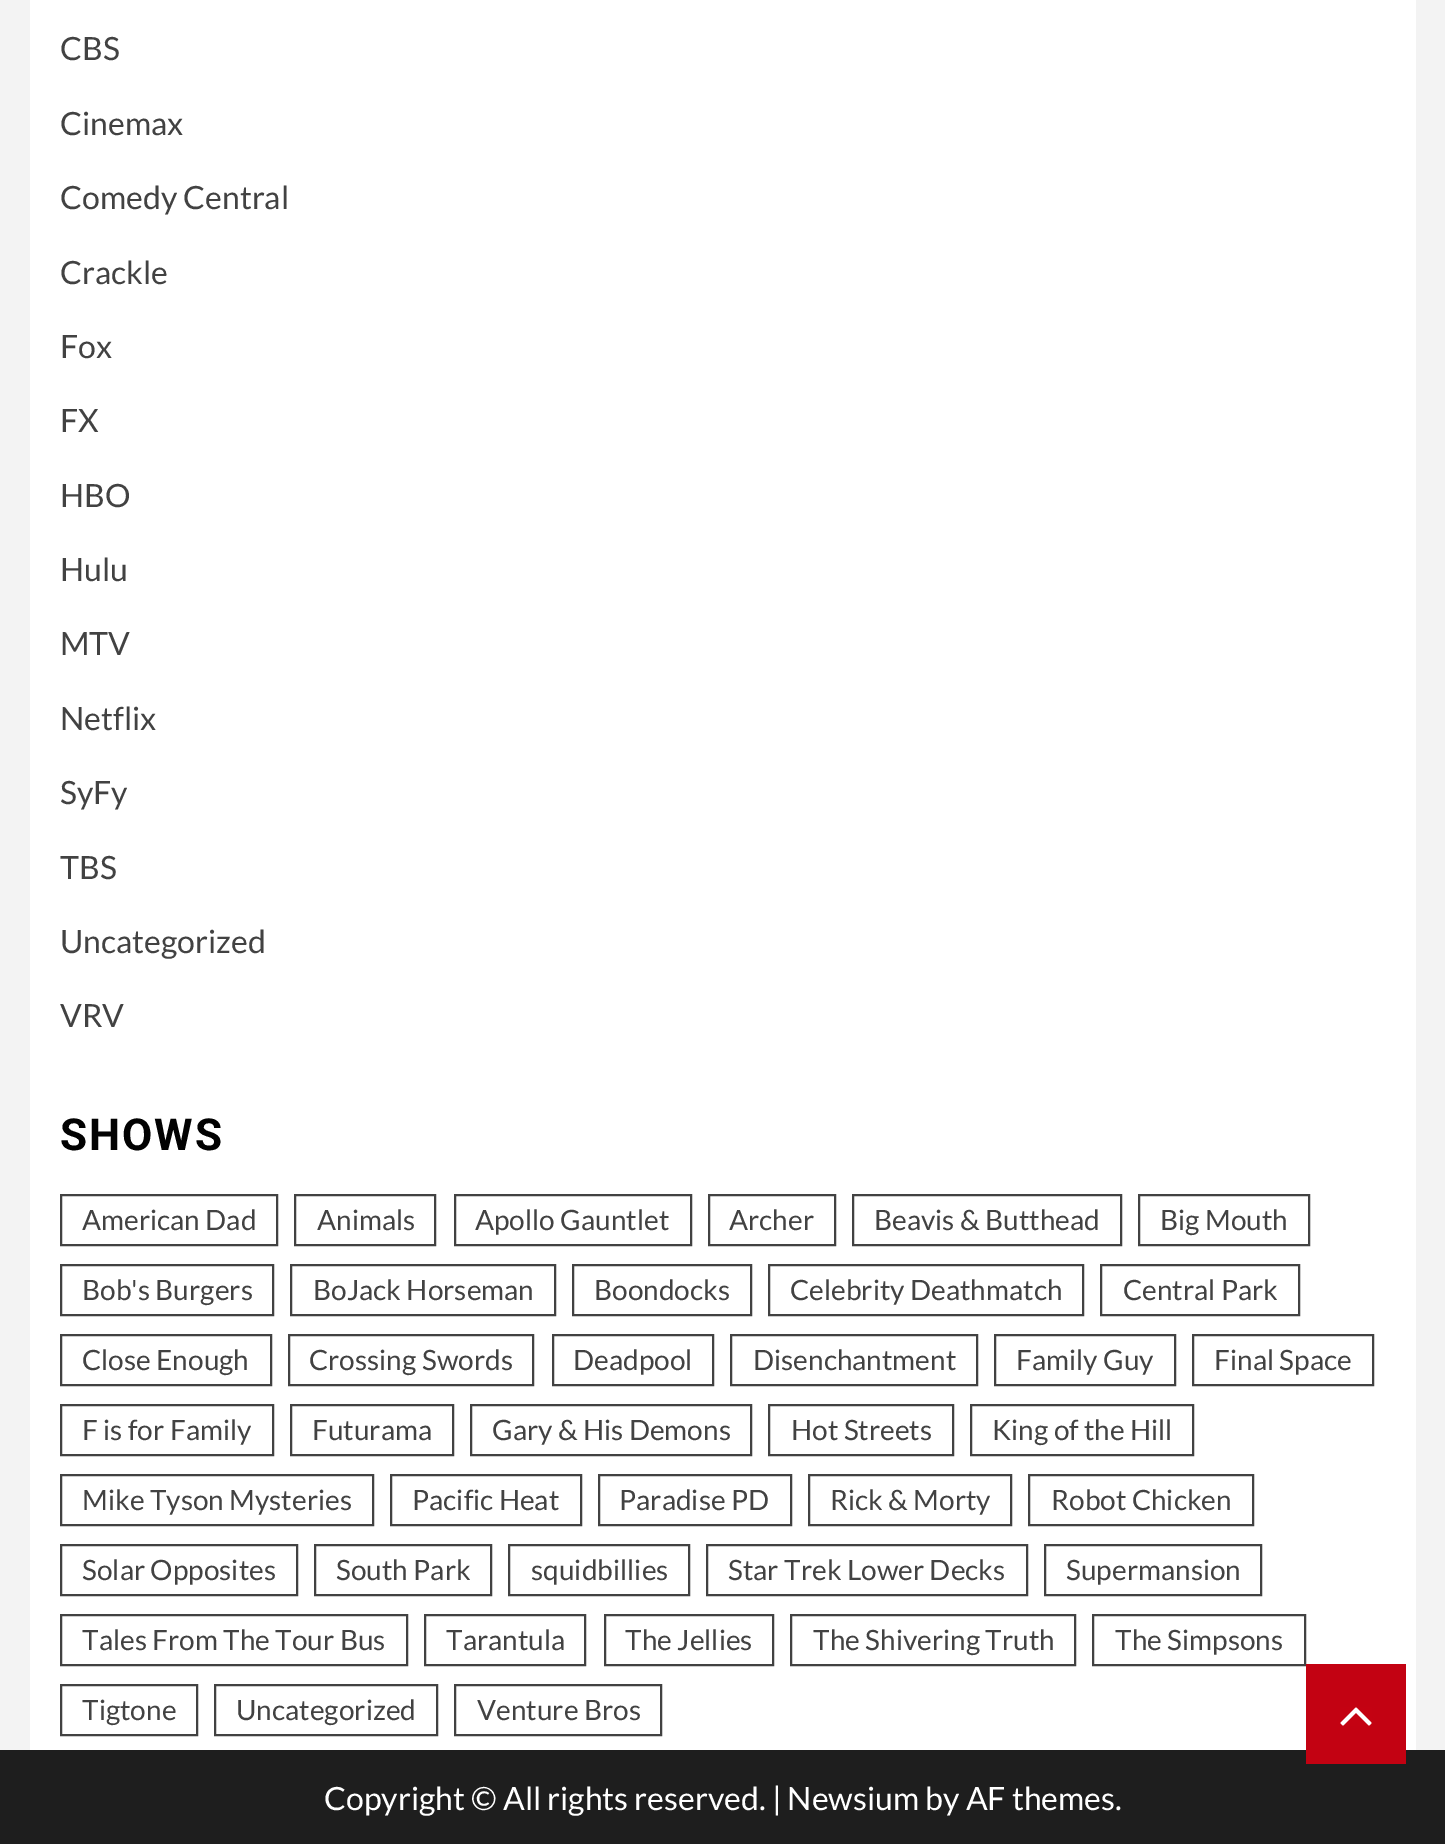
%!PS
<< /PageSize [1445 1844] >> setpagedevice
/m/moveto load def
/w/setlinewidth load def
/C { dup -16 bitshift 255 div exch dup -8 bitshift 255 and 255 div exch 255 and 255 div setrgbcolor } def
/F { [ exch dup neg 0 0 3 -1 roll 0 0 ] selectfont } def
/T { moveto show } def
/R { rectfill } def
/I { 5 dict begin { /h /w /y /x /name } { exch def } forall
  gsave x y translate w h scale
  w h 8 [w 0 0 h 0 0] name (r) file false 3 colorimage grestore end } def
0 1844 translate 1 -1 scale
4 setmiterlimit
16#F3F3F3 C
0 0 1445 1844 R
16#FFFFFF C
30 0 1386 1750 R
/Lato-Regular 32 F
16#424242 C
(CBS) 60 60 T
(Cinemax) 60 135 T
(Comedy Central) 60 209 T
(Crackle) 60 284 T
(Fox) 60 358 T
(FX) 60 432 T
(HBO) 60 507 T
(Hulu) 60 581 T
(MTV) 60 655 T
(Netflix) 60 730 T
(SyFy) 60 804 T
(TBS) 60 879 T
(Uncategorized) 60 953 T
(VRV) 60 1027 T
/Roboto-Bold 44 F
16#020202 C
60 1150 m 2 0 (SHOWS) ashow
16#424242 C
2 w
61 1195 216 50 rectstroke
/Lato-Regular 28 F
(American Dad) 82 1230 T
295 1195 140 50 rectstroke
(Animals) 317 1230 T
455 1195 236 50 rectstroke
(Apollo Gauntlet) 475 1230 T
709 1195 126 50 rectstroke
(Archer) 729 1230 T
853 1195 268 50 rectstroke
(Beavis & Butthead) 874 1230 T
1139 1195 170 50 rectstroke
(Big Mouth) 1160 1230 T
61 1265 212 50 rectstroke
(Bob's Burgers) 82 1300 T
291 1265 264 50 rectstroke
(BoJack Horseman) 313 1300 T
573 1265 178 50 rectstroke
(Boondocks) 594 1300 T
769 1265 314 50 rectstroke
(Celebrity Deathmatch) 790 1300 T
1101 1265 198 50 rectstroke
(Central Park) 1123 1300 T
61 1335 210 50 rectstroke
(Close Enough) 82 1370 T
289 1335 244 50 rectstroke
(Crossing Swords) 309 1370 T
553 1335 160 50 rectstroke
(Deadpool) 573 1370 T
731 1335 246 50 rectstroke
(Disenchantment) 753 1370 T
995 1335 180 50 rectstroke
(Family Guy) 1016 1370 T
1193 1335 180 50 rectstroke
(Final Space) 1214 1370 T
61 1405 212 50 rectstroke
(F is for Family) 82 1440 T
291 1405 162 50 rectstroke
(Futurama) 312 1440 T
471 1405 280 50 rectstroke
(Gary & His Demons) 492 1440 T
769 1405 184 50 rectstroke
(Hot Streets) 791 1440 T
971 1405 222 50 rectstroke
(King of the Hill) 992 1440 T
61 1475 312 50 rectstroke
(Mike Tyson Mysteries) 82 1510 T
391 1475 190 50 rectstroke
(Pacific Heat) 412 1510 T
599 1475 192 50 rectstroke
(Paradise PD) 619 1510 T
809 1475 202 50 rectstroke
(Rick & Morty) 830 1510 T
1029 1475 224 50 rectstroke
(Robot Chicken) 1051 1510 T
61 1545 236 50 rectstroke
(Solar Opposites) 82 1580 T
315 1545 176 50 rectstroke
(South Park) 336 1580 T
509 1545 180 50 rectstroke
(squidbillies) 531 1580 T
707 1545 320 50 rectstroke
(Star Trek Lower Decks) 728 1580 T
1045 1545 216 50 rectstroke
(Supermansion) 1066 1580 T
61 1615 346 50 rectstroke
(Tales From The Tour Bus) 82 1650 T
425 1615 160 50 rectstroke
(Tarantula) 446 1650 T
605 1615 168 50 rectstroke
(The Jellies) 625 1650 T
791 1615 284 50 rectstroke
(The Shivering Truth) 813 1650 T
1093 1615 212 50 rectstroke
(The Simpsons) 1115 1650 T
61 1685 136 50 rectstroke
(Tigtone) 82 1720 T
215 1685 222 50 rectstroke
(Uncategorized) 236 1720 T
455 1685 206 50 rectstroke
(Venture Bros) 477 1720 T
16#1E1E1E C
0 1750 1445 94 R
/Lato-Regular 32 F
16#FFFFFF C
(Copyright © All rights reserved. | Newsium by AF themes.) 324 1810 T
16#C30212 C
1306 1664 100 100 R
(1.rgb) 1340 1707 32 19 I
showpage
